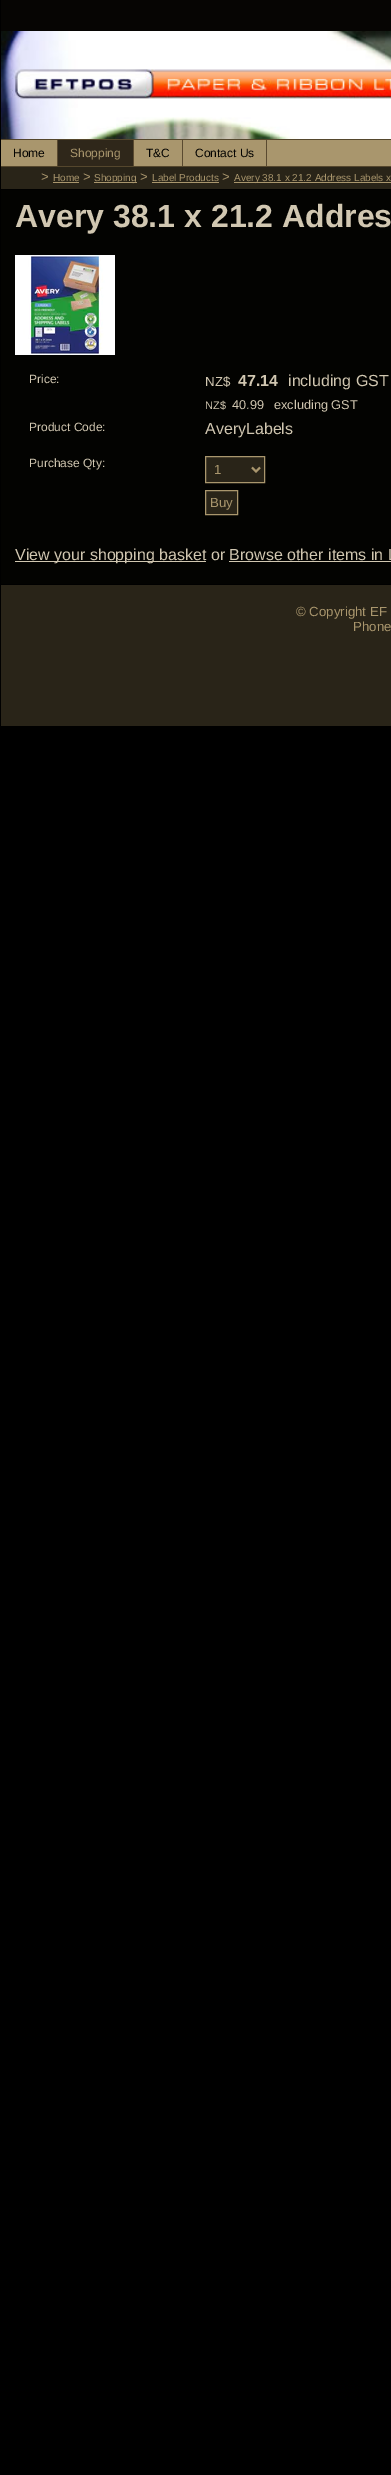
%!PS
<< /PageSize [391 2475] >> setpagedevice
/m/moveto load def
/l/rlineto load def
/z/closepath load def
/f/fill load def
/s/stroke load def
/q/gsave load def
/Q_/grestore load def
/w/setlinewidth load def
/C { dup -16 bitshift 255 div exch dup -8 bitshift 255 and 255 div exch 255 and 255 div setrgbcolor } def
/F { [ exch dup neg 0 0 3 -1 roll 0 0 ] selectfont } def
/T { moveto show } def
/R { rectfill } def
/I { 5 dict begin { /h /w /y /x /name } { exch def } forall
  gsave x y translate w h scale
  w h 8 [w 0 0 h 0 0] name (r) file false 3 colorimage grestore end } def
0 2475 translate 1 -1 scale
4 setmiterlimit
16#000000 C
0 0 391 2475 R
16#030301 C
1 190 390 394 R
16#060503 C
1 0 390 31 R
(1.rgb) 1 31 390 108 I
16#A9966D C
1 140 390 26 R
16#55472D C
1 139 390 1 R
1 166 390 1 R
16#5A4A30 C
57 140 1 26 R
/LiberationSans-Regular 12 F
16#030301 C
(Home) 13 157 T
16#5A4A30 C
133 140 1 26 R
16#2F271A C
58 140 75 26 R
16#A9966D C
(Shopping) 70 157 T
16#5A4A30 C
182 140 1 26 R
16#030301 C
(T&C) 146 157 T
16#5A4A30 C
266 140 1 26 R
16#030301 C
(Contact Us) 195 157 T
16#292418 C
1 167 390 22 R
/LiberationSans-Regular 13.25 F
16#A9966D C
(>) 41 181 T
/LiberationSans-Regular 10 F
(Home) 53 181 T
53 182 26 1 R
/LiberationSans-Regular 13.25 F
(>) 83 181 T
94 182 43 1 R
/LiberationSans-Regular 10 F
(Shopping) 94 181 T
/LiberationSans-Regular 13.25 F
(>) 140 181 T
/LiberationSans-Regular 10 F
(Label Products) 152 181 T
152 182 67 1 R
/LiberationSans-Regular 13.25 F
(>) 222 181 T
234 182 157 1 R
/LiberationSans-Regular 10 F
(Avery 38.1 x 21.2 Address Labels x) 234 181 T
/LiberationSans-Bold 32 F
16#D1C7B1 C
(Avery 38.1 x 21.2 Addres) 15 227 T
(2.rgb) 15 255 100 100 I
/LiberationSans-Regular 12 F
(Price:) 29 383 T
/LiberationSans-Regular 13.25 F
(NZ$) 205 386 T
/LiberationSans-Bold 16 F
(47.14) 238 386 T
/LiberationSans-Regular 16 F
(including GST) 288 386 T
/LiberationSans-Regular 11 F
(NZ$) 205 409 T
/LiberationSans-Regular 12.75 F
(40.99) 232 409 T
(excluding GST) 274 409 T
/LiberationSans-Regular 12 F
(Product Code:) 29 431 T
/LiberationSans-Regular 16 F
(AveryLabels) 205 434 T
/LiberationSans-Regular 12 F
(Purchase Qty:) 29 467 T
16#292418 C
205.5 456.5 m 59 0 l 0 26 l -59 0 l z q f Q_
16#A9966D C
s
2 w
252 467.5 m 4 4 l 4 -4 l s
/LiberationSans-Regular 13.25 F
(1) 214 474 T
16#292418 C
205.5 490.5 m 32 0 l 0 24 l -32 0 l z q f Q_
16#A9966D C
1 w
s
(Buy) 210 507 T
16#D1C7B1 C
15 561 191 1 R
/LiberationSans-Regular 16 F
(View your shopping basket or Browse other items in L) 15 560 T
229 561 162 1 R
16#292418 C
1 585 390 141 R
/LiberationSans-Regular 13.25 F
16#A9966D C
(© Copyright EF) 296 616 T
(Phone) 353 631 T
showpage
